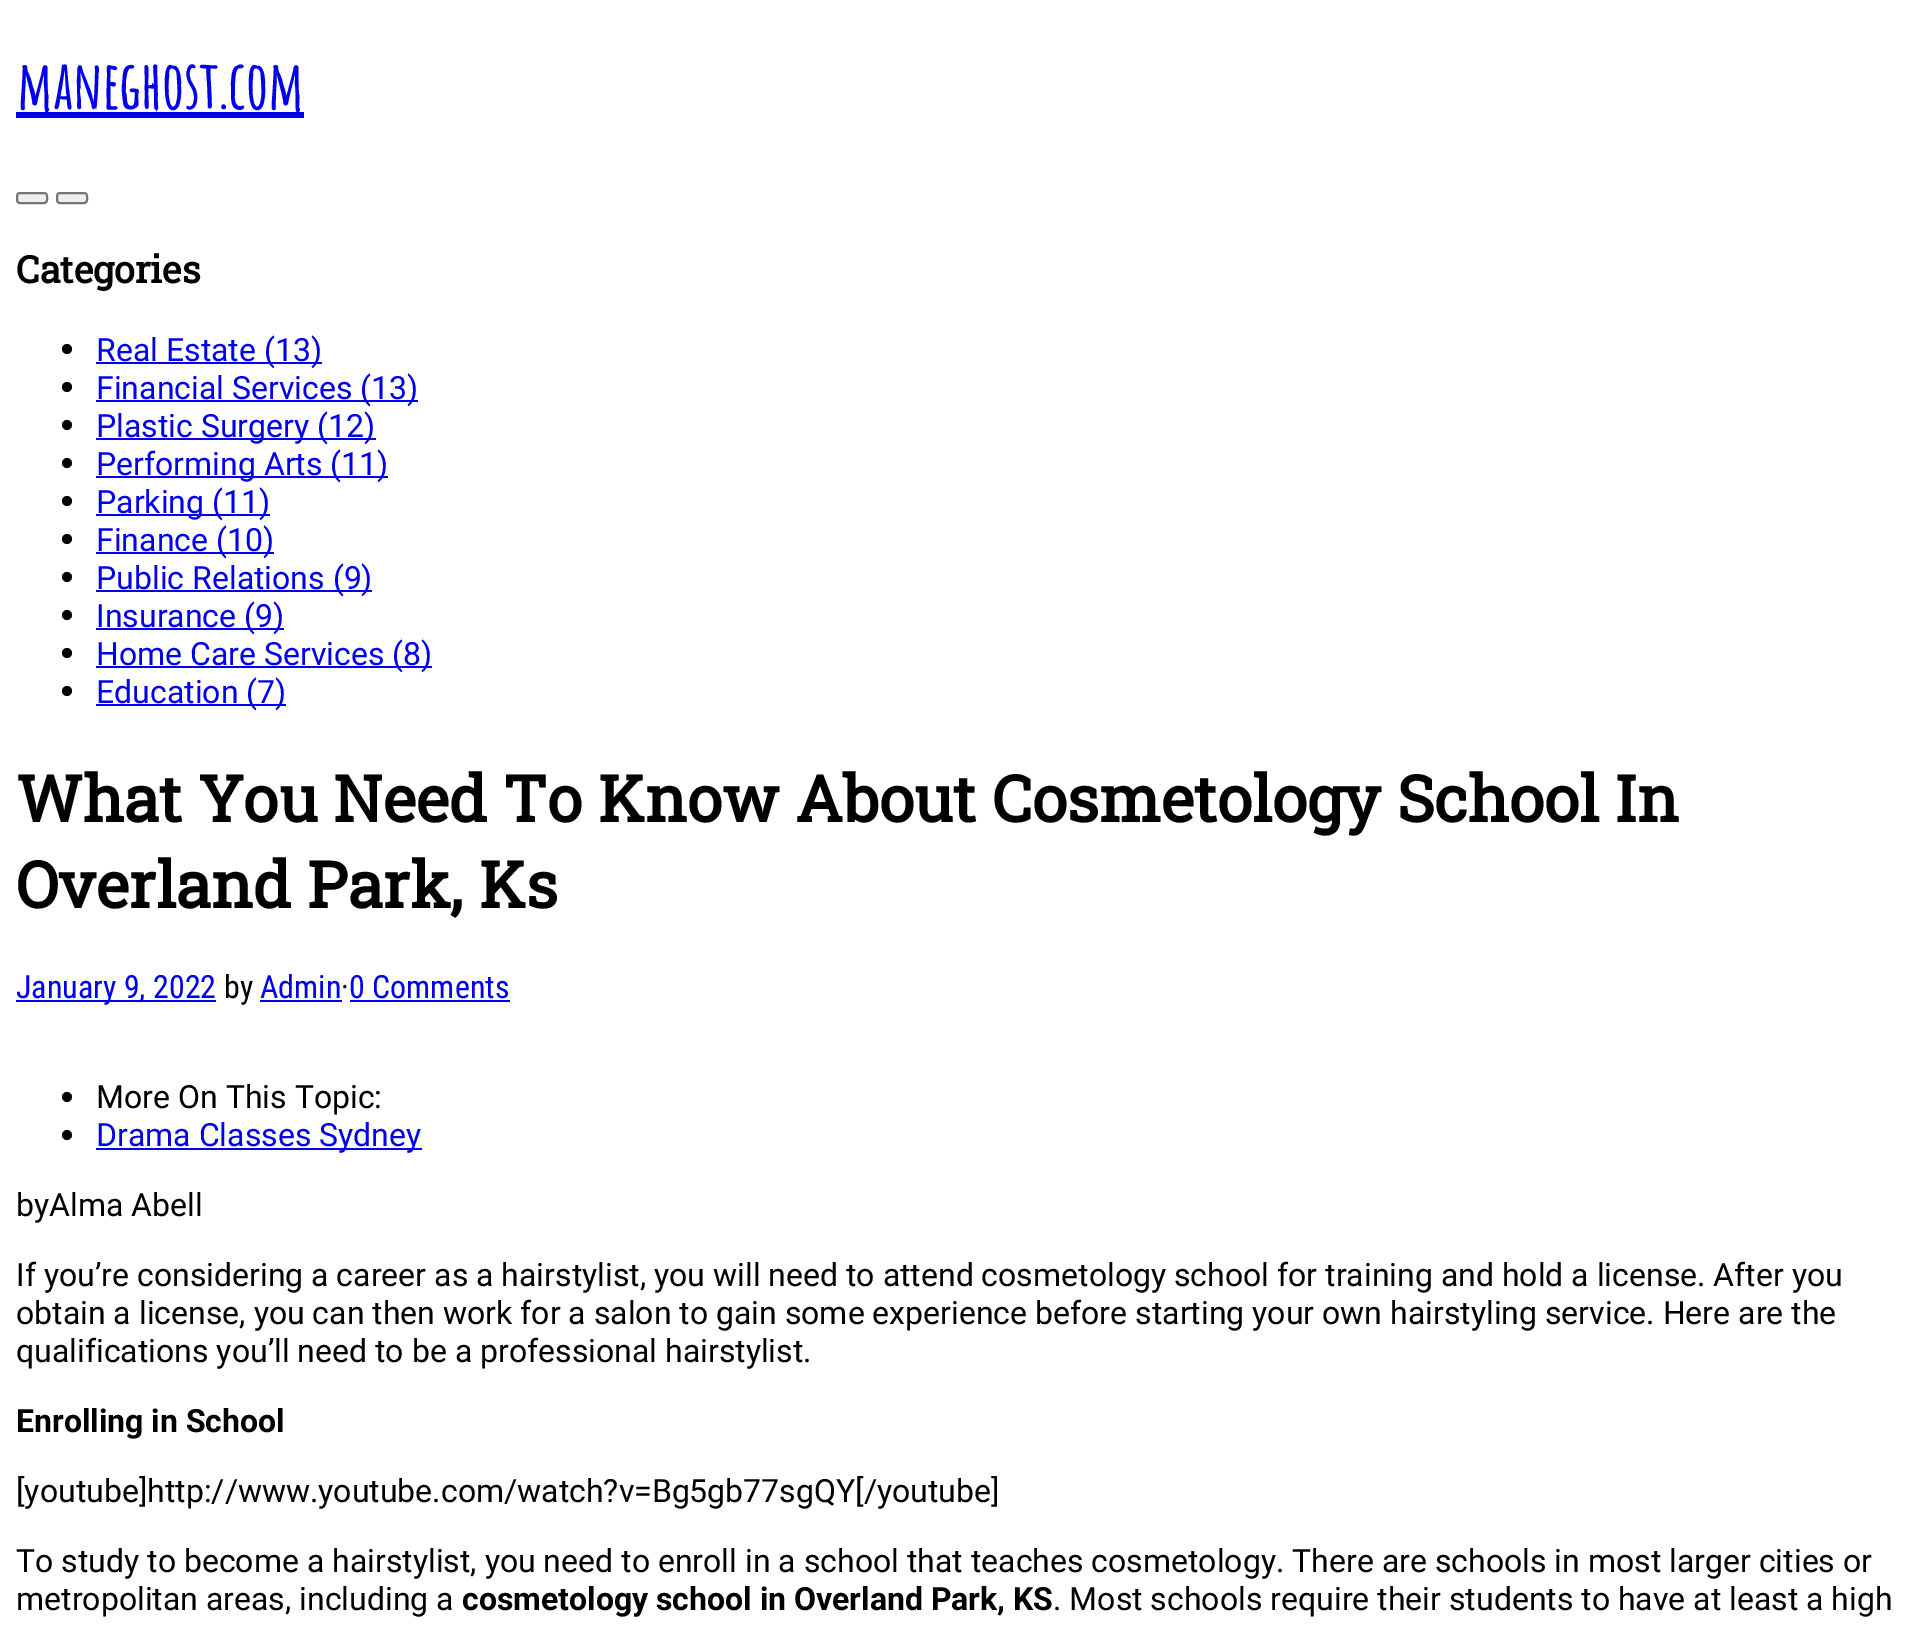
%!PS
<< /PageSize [1913 1631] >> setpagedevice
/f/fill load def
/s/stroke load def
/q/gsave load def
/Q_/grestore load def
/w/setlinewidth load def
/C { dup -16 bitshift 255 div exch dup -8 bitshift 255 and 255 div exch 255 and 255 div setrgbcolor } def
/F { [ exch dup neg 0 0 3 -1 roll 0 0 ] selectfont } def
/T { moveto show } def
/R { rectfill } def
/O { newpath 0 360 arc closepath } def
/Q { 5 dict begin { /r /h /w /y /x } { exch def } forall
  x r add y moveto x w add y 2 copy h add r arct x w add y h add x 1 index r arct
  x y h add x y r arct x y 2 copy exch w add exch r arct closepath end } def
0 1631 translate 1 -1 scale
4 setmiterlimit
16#FFFFFF C
0 0 1913 1631 R
16#0000EE C
16 112 288 6 R
/AmaticSC-Bold 64 F
(maneghost.com) 16 109 T
16#EFEFEF C
17 193 30 10 3 Q q f Q_
16#767676 C
2 w
s
16#EFEFEF C
57 193 30 10 3 Q q f Q_
16#767676 C
s
/RobotoSlab-Bold 37.5 F
16#000000 C
(Categories) 16 283 T
67 349 5 O f
16#0000EE C
96 362 226 2 R
/Roboto-Regular 32 F
(Real Estate \(13\)) 96 361 T
16#000000 C
67 387 5 O f
16#0000EE C
96 400 322 2 R
(Financial Services \(13\)) 96 399 T
16#000000 C
67 425 5 O f
16#0000EE C
96 438 280 2 R
(Plastic Surgery \(12\)) 96 437 T
16#000000 C
67 463 5 O f
16#0000EE C
96 476 292 2 R
(Performing Arts \(11\)) 96 475 T
16#000000 C
67 501 5 O f
16#0000EE C
96 514 174 2 R
(Parking \(11\)) 96 513 T
16#000000 C
67 539 5 O f
16#0000EE C
96 552 178 2 R
(Finance \(10\)) 96 551 T
16#000000 C
67 577 5 O f
16#0000EE C
96 590 276 2 R
(Public Relations \(9\)) 96 589 T
16#000000 C
67 615 5 O f
16#0000EE C
96 628 188 2 R
(Insurance \(9\)) 96 627 T
16#000000 C
67 653 5 O f
16#0000EE C
96 666 336 2 R
(Home Care Services \(8\)) 96 665 T
16#000000 C
67 691 5 O f
16#0000EE C
96 704 190 2 R
(Education \(7\)) 96 703 T
/RobotoSlab-Bold 64 F
16#000000 C
(What You Need To Know About Cosmetology School In) 16 822 T
(Overland Park, Ks) 16 908 T
16#0000EE C
16 1000 200 2 R
/RobotoCondensed-Regular 32 F
(January 9, 2022) 16 998 T
16#000000 C
(by) 224 998 T
16#0000EE C
(Admin) 260 998 T
260 1000 82 2 R
16#000000 C
(·) 341 998 T
16#0000EE C
(0 Comments) 349 998 T
350 1000 160 2 R
16#000000 C
67 1097 5 O f
/Roboto-Regular 32 F
(More On This Topic:) 96 1108 T
67 1135 5 O f
16#0000EE C
96 1148 326 2 R
(Drama Classes Sydney) 96 1146 T
16#000000 C
(byAlma Abell) 16 1216 T
(If you’re considering a career as a hairstylist, you will need to attend cosmetology school for training and hold a license. After you) 16 1286 T
(obtain a license, you can then work for a salon to gain some experience before starting your own hairstyling service. Here are the) 16 1324 T
(qualifications you’ll need to be a professional hairstylist.) 16 1362 T
/Roboto-Bold 32 F
(Enrolling in School) 16 1432 T
/Roboto-Regular 32 F
([youtube]http://www.youtube.com/watch?v=Bg5gb77sgQY[/youtube]) 16 1502 T
(To study to become a hairstylist, you need to enroll in a school that teaches cosmetology. There are schools in most larger cities or) 16 1572 T
(metropolitan areas, including a) 16 1610 T
/Roboto-Bold 32 F
(cosmetology school in Overland Park, KS) 462 1610 T
/Roboto-Regular 32 F
(. Most schools require their students to have at least a high) 1053 1610 T
showpage
